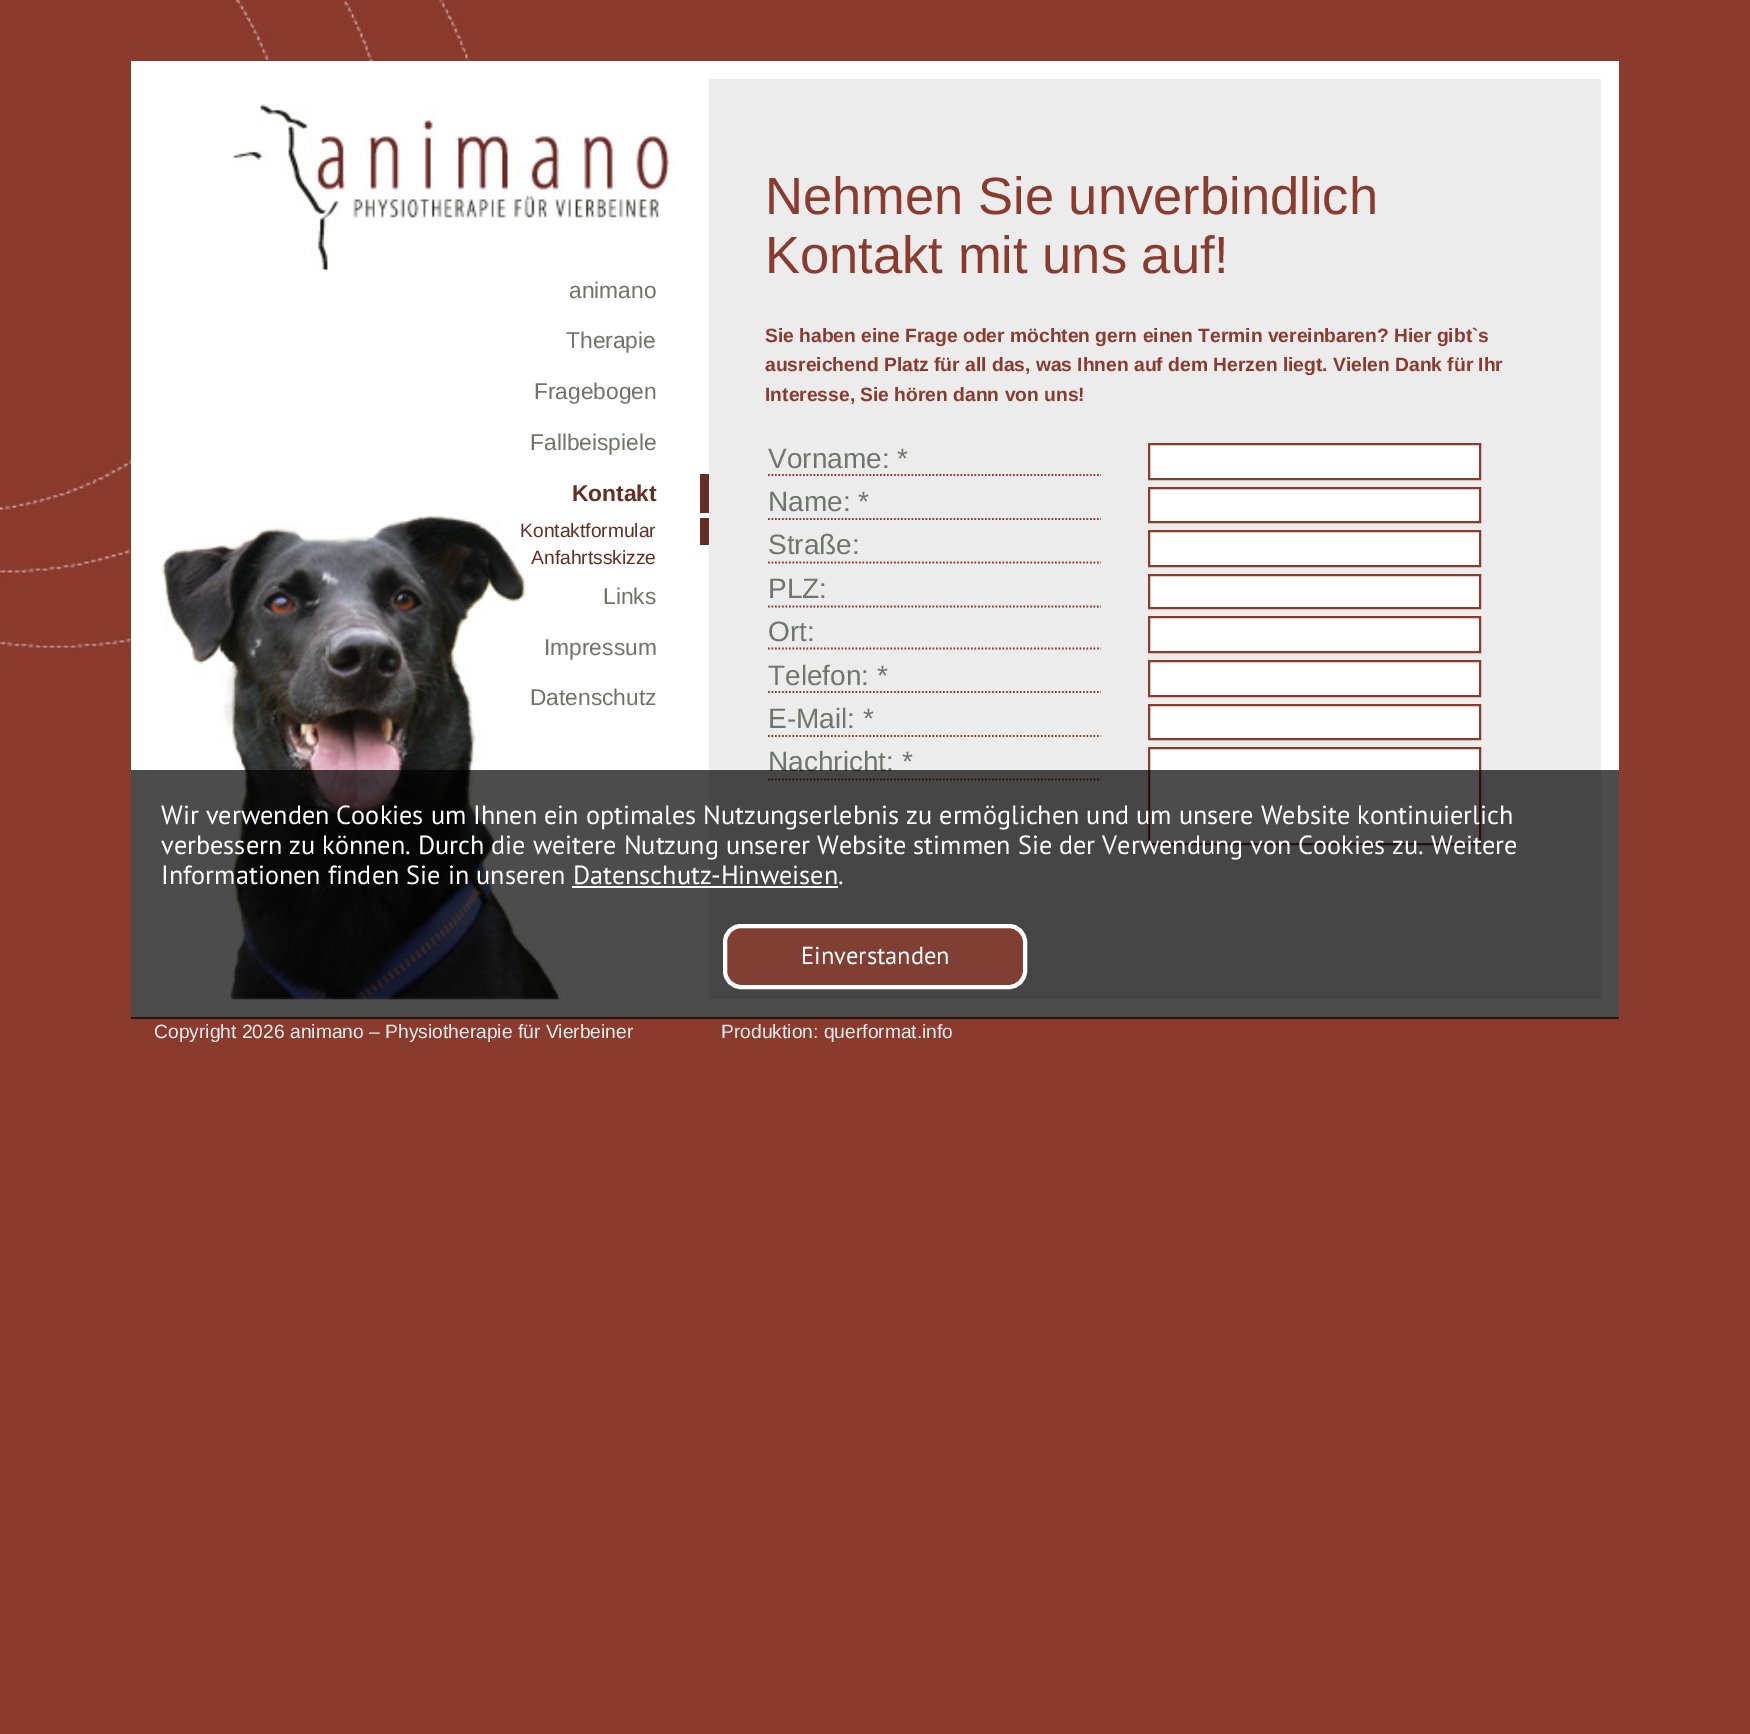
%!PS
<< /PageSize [1750 1734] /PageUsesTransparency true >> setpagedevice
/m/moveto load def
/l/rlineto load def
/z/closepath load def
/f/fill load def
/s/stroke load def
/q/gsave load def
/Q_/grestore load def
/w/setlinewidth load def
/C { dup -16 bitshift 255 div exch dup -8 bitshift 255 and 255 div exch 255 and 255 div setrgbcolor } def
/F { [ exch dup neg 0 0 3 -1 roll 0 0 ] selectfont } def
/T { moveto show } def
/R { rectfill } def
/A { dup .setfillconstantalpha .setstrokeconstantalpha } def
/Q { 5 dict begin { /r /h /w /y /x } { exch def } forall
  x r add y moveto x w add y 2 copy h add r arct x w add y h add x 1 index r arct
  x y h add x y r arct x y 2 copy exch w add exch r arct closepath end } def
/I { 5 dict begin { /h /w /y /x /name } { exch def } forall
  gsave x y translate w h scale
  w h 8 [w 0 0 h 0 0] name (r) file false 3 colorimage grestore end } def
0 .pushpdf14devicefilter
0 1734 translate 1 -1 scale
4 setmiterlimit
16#8A3B2E C
0 0 1750 1734 R
(1.rgb) 0 0 496 654 I
16#FFFFFF C
131 61 1488 956 R
(2.rgb) 160 515 424 485 I
(3.rgb) 232 104 442 166 I
/LiberationSans-Regular 22.75 F
16#71746C C
(animano) 569 298 T
(Therapie) 566 348 T
(Fragebogen) 534 399 T
(Fallbeispiele) 530 450 T
16#632F24 C
700 474 9 39 R
/LiberationSans-Bold 22.75 F
16#642F25 C
(Kontakt) 572 501 T
16#632F24 C
700 518 9 27 R
/LiberationSans-Regular 19.25 F
16#642F25 C
(Kontaktformular) 520 537 T
(Anfahrtsskizze) 531 564 T
/LiberationSans-Regular 22.75 F
16#71746C C
(Links) 603 604 T
(Impressum) 544 655 T
(Datenschutz) 530 705 T
16#ECECEC C
709 79 892 920 R
/LiberationSans-Regular 52.5 F
16#8A3B2E C
(Nehmen Sie unverbindlich) 765 214 T
(Kontakt mit uns auf!) 765 273 T
/LiberationSans-Bold 19.25 F
(Sie haben eine Frage oder möchten gern einen Termin vereinbaren? Hier gibt`s) 765 342 T
(ausreichend Platz für all das, was Ihnen auf dem Herzen liegt. Vielen Dank für Ihr) 765 371 T
(Interesse, Sie hören dann von uns!) 765 401 T
1.8 w
[1.75 1.75] 0 setdash
768 475 m 333 0 l s
/LiberationSans-Regular 28 F
16#71746C C
(Vorname: *) 768 468 T
16#FFFFFF C
1149 444 m 331 0 l 0 35 l -331 0 l z q f Q_
16#8A3B2E C
2 w
[] 0 setdash
s
1.8 w
[1.75 1.75] 0 setdash
768 519 m 333 0 l s
16#71746C C
(Name: *) 768 511 T
16#FFFFFF C
1149 488 m 331 0 l 0 34 l -331 0 l z q f Q_
16#8A3B2E C
2 w
[] 0 setdash
s
1.8 w
[1.75 1.75] 0 setdash
768 562.5 m 333 0 l s
16#71746C C
(Straße:) 768 554 T
16#FFFFFF C
1149 531 m 331 0 l 0 35 l -331 0 l z q f Q_
16#8A3B2E C
2 w
[] 0 setdash
s
1.8 w
[1.75 1.75] 0 setdash
768 606.5 m 333 0 l s
16#71746C C
(PLZ:) 768 598 T
16#FFFFFF C
1149 575 m 331 0 l 0 33 l -331 0 l z q f Q_
16#8A3B2E C
2 w
[] 0 setdash
s
1.8 w
[1.75 1.75] 0 setdash
768 648.5 m 333 0 l s
16#71746C C
(Ort:) 768 641 T
16#FFFFFF C
1149 617 m 331 0 l 0 35 l -331 0 l z q f Q_
16#8A3B2E C
2 w
[] 0 setdash
s
1.8 w
[1.75 1.75] 0 setdash
768 692 m 333 0 l s
16#71746C C
(Telefon: *) 768 685 T
16#FFFFFF C
1149 661 m 331 0 l 0 35 l -331 0 l z q f Q_
16#8A3B2E C
2 w
[] 0 setdash
s
1.8 w
[1.75 1.75] 0 setdash
768 736 m 333 0 l s
16#71746C C
(E-Mail: *) 768 728 T
16#FFFFFF C
1149 705 m 331 0 l 0 34 l -331 0 l z q f Q_
16#8A3B2E C
2 w
[] 0 setdash
s
1.8 w
[1.75 1.75] 0 setdash
768 779.5 m 333 0 l s
16#71746C C
(Nachricht: *) 768 771 T
16#FFFFFF C
1149 748 m 331 0 l 0 96 l -331 0 l z q f Q_
16#8A3B2E C
2 w
[] 0 setdash
s
0.7 A
16#000000 C
131 770 1488 249 R
/PTSans-Regular 26.25 F
1 A
16#FFFFFF C
(Wir verwenden Cookies um Ihnen ein optimales Nutzungserlebnis zu ermöglichen und um unsere Website kontinuierlich) 161 824 T
(verbessern zu können. Durch die weitere Nutzung unserer Website stimmen Sie der Verwendung von Cookies zu. Weitere) 161 854 T
(Informationen finden Sie in unseren Datenschutz-Hinweisen.) 161 884 T
572 886 266 2 R
16#813F33 C
725 926 300 61 16 Q q f Q_
16#FFFFFF C
4 w
s
/PTSans-Regular 24.5 F
(Einverstanden) 801 964 T
/LiberationSans-Regular 19.25 F
16#ECECEC C
(Copyright 2026 animano – Physiotherapie für Vierbeiner) 154 1038 T
(Produktion: querformat.info) 721 1038 T
.poppdf14devicefilter showpage
